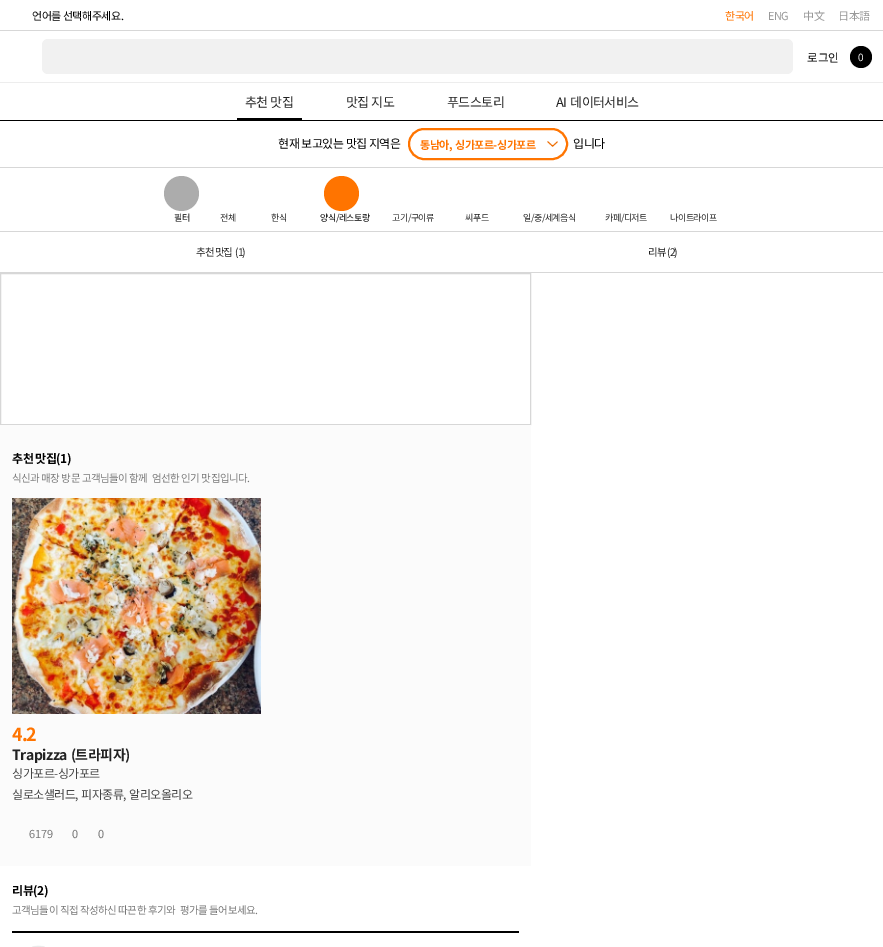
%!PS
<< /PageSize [883 947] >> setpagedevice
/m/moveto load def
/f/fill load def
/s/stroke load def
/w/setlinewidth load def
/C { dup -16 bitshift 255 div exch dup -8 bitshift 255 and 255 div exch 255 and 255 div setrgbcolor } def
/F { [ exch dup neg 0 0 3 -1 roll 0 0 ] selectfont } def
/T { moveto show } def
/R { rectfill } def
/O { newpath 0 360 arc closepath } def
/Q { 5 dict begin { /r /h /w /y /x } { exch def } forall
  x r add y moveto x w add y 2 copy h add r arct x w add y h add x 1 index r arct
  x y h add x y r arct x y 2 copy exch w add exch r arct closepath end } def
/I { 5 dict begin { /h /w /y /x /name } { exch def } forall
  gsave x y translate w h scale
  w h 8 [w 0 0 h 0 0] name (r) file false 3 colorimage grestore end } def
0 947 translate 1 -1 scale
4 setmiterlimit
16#FFFFFF C
0 0 883 947 R
16#000000 C
0 120 883 1 R
16#D7D7D7 C
0 30 883 1 R
/NotoSansKR-Regular 11 F
16#000000 C
32 20 m -.5 0 (언어를 선택해주세요.) ashow
16#FF7400 C
725 20 m -.5 0 (한국어) ashow
/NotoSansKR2-Regular 11 F
16#999999 C
768 20 m -.5 0 (ENG) ashow
803 20 m -.5 0 (中文) ashow
838 20 m -.5 0 (日本語) ashow
16#EDEDED C
0 82 883 1 R
16#F1F1F1 C
42 39 751 35 6 Q f
/NotoSansKR-Regular 11.5 F
16#000000 C
(로그인) 807 62 T
861 57 11 O f
/NotoSansKR2-Regular 10 F
16#FFFFFF C
(0) 858 61 T
16#000000 C
237 118 65 2 R
/NotoSansKR-Regular 13 F
16#222222 C
245 107 m -.5 0 (추천 맛집) ashow
346 107 m -.5 0 (맛집 지도) ashow
447 107 m -.5 0 (푸드스토리) ashow
556 107 m 1 0 32 -.5 0 (AI 데이터서비스) awidthshow
/NotoSansKR-Regular 12 F
16#000000 C
278 148 m -.5 0 (현재 보고있는 맛집 지역은) ashow
(1.rgb) 547 141 11 6 I
16#FF7400 C
2 w
409 129 158 30 15 Q s
/NotoSansKR-Bold 11 F
420 149 m 1 0 32 -.5 0 (동남아, 싱가포르-싱가포르) awidthshow
/NotoSansKR-Regular 12 F
16#000000 C
573 148 m -.5 0 (입니다) ashow
16#D7D7D7 C
0 167 883 1 R
16#ACACAC C
181.5 193.5 17.5 O f
/NotoSansKR-Regular 9 F
16#000000 C
174 221 m -.5 0 (필터) ashow
16#222222 C
220 221 m -.5 0 (전체) ashow
271 221 m -.5 0 (한식) ashow
16#FF7400 C
341.5 193.5 17.5 O f
16#000000 C
320 221 m -.5 0 (양식/레스토랑) ashow
16#222222 C
392 221 m -.5 0 (고기/구이류) ashow
465 221 m -.5 0 (씨푸드) ashow
523 221 m -.5 0 (일/중/세계음식) ashow
605 221 m -.5 0 (카페/디저트) ashow
670 221 m -.5 0 (나이트라이프) ashow
16#D7D7D7 C
0 231 883 1 R
0 272 883 1 R
/NotoSansKR-Regular 10.5 F
16#222222 C
196 256 m -1 0 (추천 맛집) ashow
/NotoSansKR2-Regular 10.5 F
235 256 m -1 0 (\(1\)) ashow
/NotoSansKR-Regular 10.5 F
648 256 m -1 0 (리뷰) ashow
/NotoSansKR2-Regular 10.5 F
667 256 m -1 0 (\(2\)) ashow
16#D7D7D7 C
1 w
.5 273.5 530 151 rectstroke
16#FBFBFB C
0 425 531 441 R
/NotoSansKR-Bold 12 F
16#000000 C
12 463 m -.5 0 (추천 맛집\(1\)) ashow
/NotoSansKR-Regular 10.5 F
16#777777 C
12 482 m -.5 0 (식신과 매장 방문 고객님들이 함께) ashow
152 482 m -.5 0 (엄선한 인기 맛집입니다.) ashow
(2.rgb) 12 498 249 216 I
/NotoSansKR2-Bold 18 F
16#FF7400 C
12 741 m -1 0 (4.2) ashow
/NotoSansKR-Bold 14 F
16#222222 C
12 760 m 1 0 32 -.5 0 (Trapizza \(트라피자\)) awidthshow
/NotoSansKR-Regular 12 F
16#444444 C
12 778 m -.5 0 (싱가포르-싱가포르) ashow
12 799 m -.5 0 (실로소샐러드) ashow
75 799 m 1 0 32 -.5 0 (, 피자종류, 알리오올리오) awidthshow
/NotoSansKR2-Regular 11 F
16#777777 C
(6179) 29 838 T
(0) 72 838 T
(0) 98 838 T
/NotoSansKR-Bold 12 F
16#000000 C
12 895 m -.5 0 (리뷰\(2\)) ashow
/NotoSansKR-Regular 10.5 F
16#777777 C
12 914 m -.5 0 (고객님들이 직접 작성하신 따끈한 후기와) ashow
180 914 m -.5 0 (평가를 들어보세요.) ashow
16#000000 C
12 931 507 2 R
(3.rgb) 32 945 13 2 I
showpage
